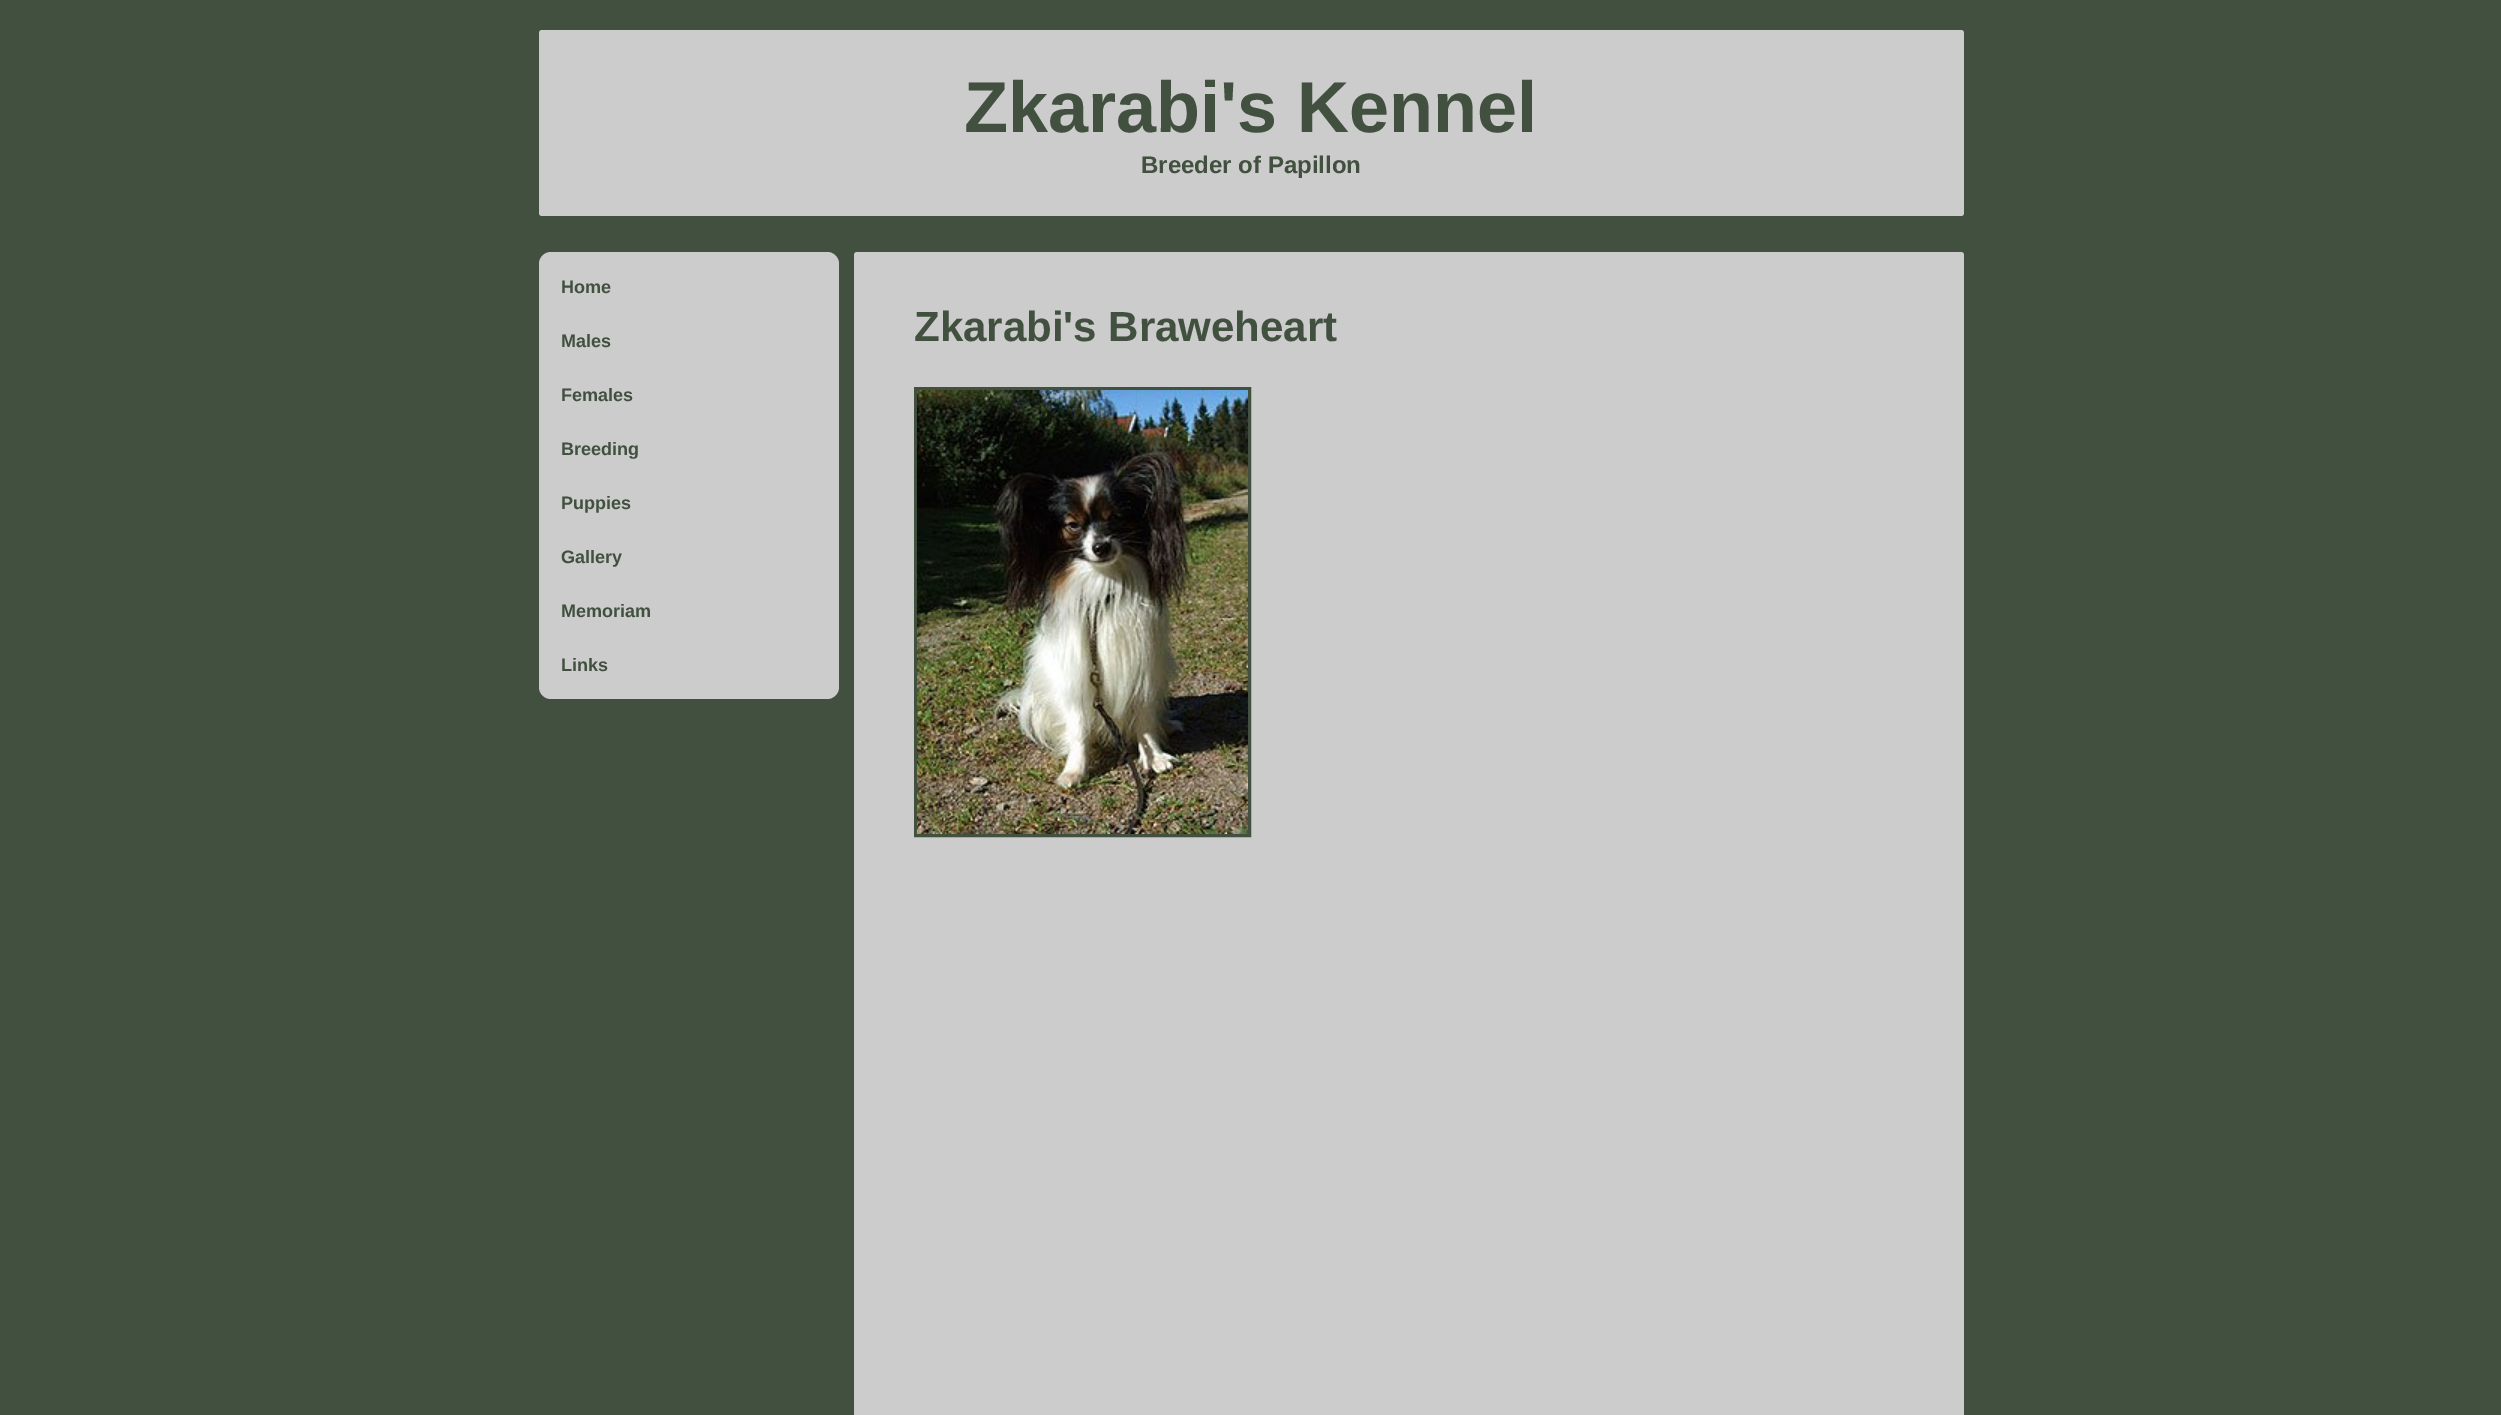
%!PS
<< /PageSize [2501 1415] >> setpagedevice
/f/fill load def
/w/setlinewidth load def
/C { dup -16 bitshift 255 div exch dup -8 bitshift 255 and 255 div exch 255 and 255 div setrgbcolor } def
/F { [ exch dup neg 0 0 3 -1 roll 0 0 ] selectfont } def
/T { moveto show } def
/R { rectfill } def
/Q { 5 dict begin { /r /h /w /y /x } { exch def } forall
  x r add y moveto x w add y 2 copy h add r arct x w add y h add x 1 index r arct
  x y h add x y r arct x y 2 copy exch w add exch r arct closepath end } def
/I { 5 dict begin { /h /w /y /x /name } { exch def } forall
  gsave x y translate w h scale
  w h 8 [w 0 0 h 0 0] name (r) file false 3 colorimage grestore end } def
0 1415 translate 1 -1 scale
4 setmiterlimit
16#41503F C
0 0 2501 1415 R
16#CCCCCC C
539 30 1425 186 3 Q f
/LiberationSans-Bold 72 F
16#41503F C
(Zkarabi's Kennel) 964 132 T
/LiberationSans-Bold 24 F
(Breeder of Papillon) 1141 173 T
16#CCCCCC C
539 252 300 447 12 Q f
/LiberationSans-Bold 18 F
16#41503F C
(Home) 561 293 T
(Males) 561 347 T
(Females) 561 401 T
(Breeding) 561 455 T
(Puppies) 561 509 T
(Gallery) 561 563 T
(Memoriam) 561 617 T
(Links) 561 671 T
16#CCCCCC C
854 252 1110 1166 3 Q f
/LiberationSans-Bold 42 F
16#41503F C
(Zkarabi's Braweheart) 914 341 T
3 w
915.5 388.5 334 447 rectstroke
(1.rgb) 916 390 332 444 I
showpage
